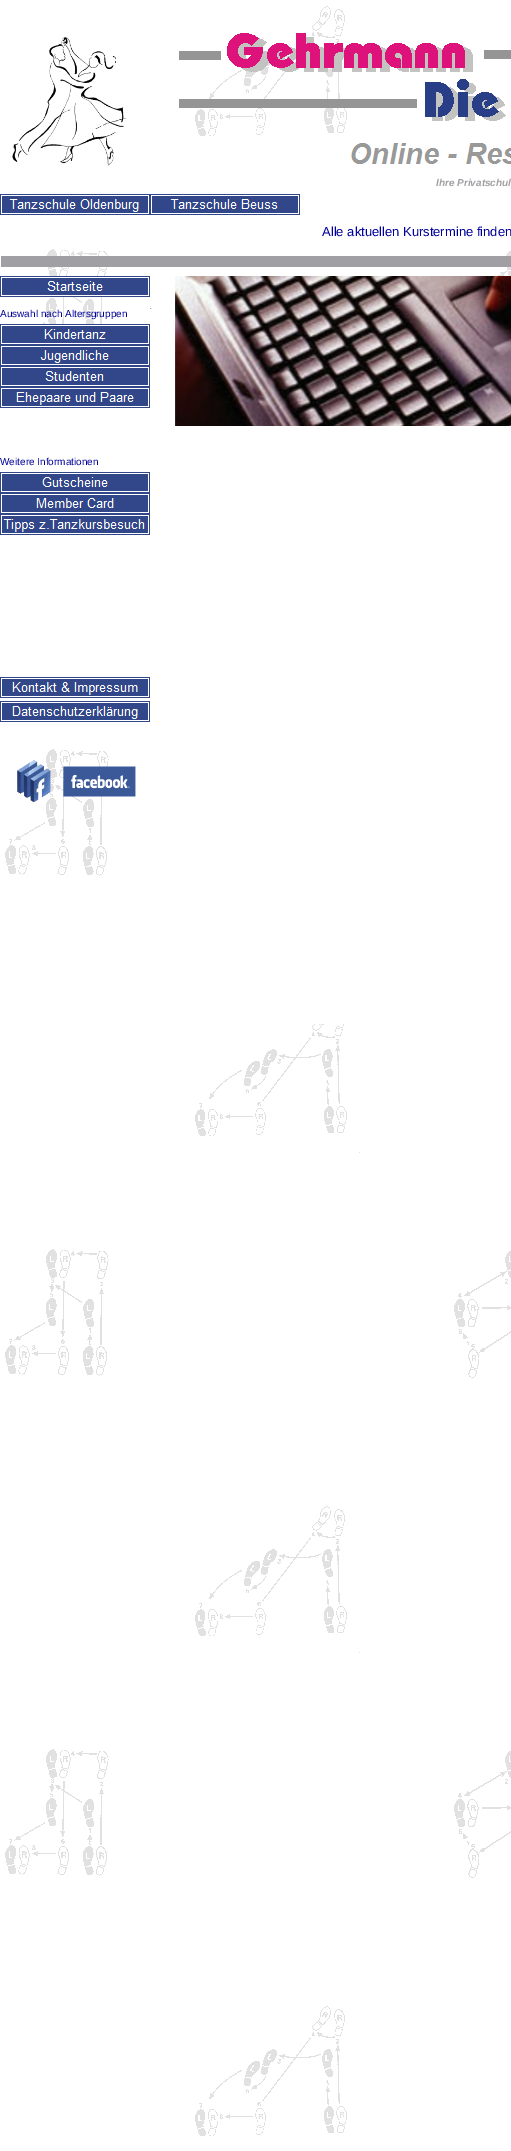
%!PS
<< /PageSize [511 2151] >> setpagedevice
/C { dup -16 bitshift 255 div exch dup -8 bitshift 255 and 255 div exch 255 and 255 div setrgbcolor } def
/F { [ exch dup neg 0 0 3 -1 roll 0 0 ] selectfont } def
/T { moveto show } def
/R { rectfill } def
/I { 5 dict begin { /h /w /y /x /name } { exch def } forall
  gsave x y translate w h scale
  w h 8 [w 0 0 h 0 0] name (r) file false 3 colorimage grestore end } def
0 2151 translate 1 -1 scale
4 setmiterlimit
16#FFFFFF C
0 0 511 2151 R
(1.rgb) 5 6 506 2130 I
(2.rgb) 12 37 115 129 I
(3.rgb) 179 33 332 131 I
/LiberationSans-BoldItalic 10 F
16#A0A0A4 C
(Ihre Privatschul) 436 186 T
(4.rgb) 0 194 150 21 I
(5.rgb) 150 194 150 21 I
/LiberationSans-Regular 13 F
16#000099 C
(Alle aktuellen Kurstermine finden) 322 236 T
16#A0A0A4 C
1 256 510 11 R
(6.rgb) 0 276 150 21 I
16#9F9F9F C
150 308 2 1 R
16#EEEEEE C
151 308 1 1 R
/LiberationSans-Regular 10 F
16#000099 C
(Auswahl nach Altersgruppen) 0 317 T
(7.rgb) 0 324 150 21 I
(8.rgb) 0 345 150 21 I
(9.rgb) 0 366 150 21 I
(10.rgb) 0 387 150 21 I
(Weitere Informationen) 0 465 T
(11.rgb) 0 472 150 21 I
(12.rgb) 0 493 150 21 I
(13.rgb) 0 514 150 21 I
(14.rgb) 0 677 150 21 I
(15.rgb) 0 701 150 21 I
(16.rgb) 17 760 119 42 I
(17.rgb) 175 276 336 150 I
16#FFFFFF C
195 506 316 518 R
showpage
